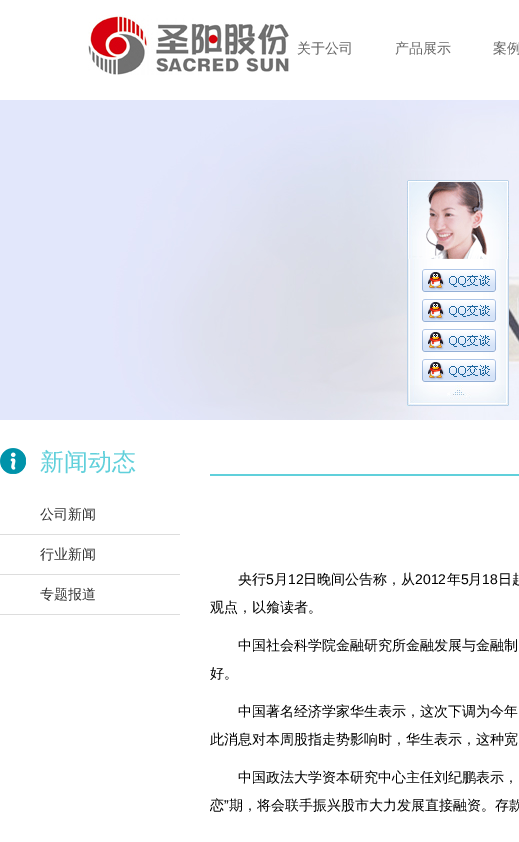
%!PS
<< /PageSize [519 842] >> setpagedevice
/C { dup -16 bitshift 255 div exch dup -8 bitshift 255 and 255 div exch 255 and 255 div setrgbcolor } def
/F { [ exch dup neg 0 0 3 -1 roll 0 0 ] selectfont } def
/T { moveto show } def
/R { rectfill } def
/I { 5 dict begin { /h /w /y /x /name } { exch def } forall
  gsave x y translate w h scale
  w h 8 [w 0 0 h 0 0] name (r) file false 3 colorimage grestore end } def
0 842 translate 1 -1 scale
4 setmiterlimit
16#FFFFFF C
0 0 519 842 R
(1.rgb) 88 15 201 60 I
/WenQuanYiZenHei-Medium 14 F
16#666666 C
(关于公司) 297 53 T
(产品展示) 395 53 T
(案例) 493 53 T
(2.rgb) 0 100 519 320 I
(3.rgb) 407 180 102 79 I
(4.rgb) 407 259 102 126 I
(5.rgb) 422 269 74 23 I
(5.rgb) 422 299 74 23 I
(5.rgb) 422 329 74 23 I
(5.rgb) 422 359 74 23 I
(6.rgb) 407 385 102 21 I
(7.rgb) 0 448 26 26 I
/WenQuanYiZenHei-Medium 24 F
16#60D0DB C
(新闻动态) 40 470 T
16#DDDDDD C
0 534 180 1 R
/WenQuanYiZenHei-Medium 14 F
16#333333 C
(公司新闻) 40 519 T
16#DDDDDD C
0 574 180 1 R
16#333333 C
(行业新闻) 40 559 T
16#DDDDDD C
0 614 180 1 R
16#333333 C
(专题报道) 40 599 T
16#60D0DB C
210 474 309 2 R
16#000000 C
(央行) 238 584 T
/LiberationSans-Regular 14 F
(5) 266 584 T
/WenQuanYiZenHei-Medium 14 F
(月) 274 584 T
/LiberationSans-Regular 14 F
(12) 288 584 T
/WenQuanYiZenHei-Medium 14 F
(日晚间公告称，从) 303 584 T
/LiberationSans-Regular 14 F
(2012) 415 584 T
/WenQuanYiZenHei-Medium 14 F
(年) 447 584 T
/LiberationSans-Regular 14 F
(5) 461 584 T
/WenQuanYiZenHei-Medium 14 F
(月) 468 584 T
/LiberationSans-Regular 14 F
(18) 482 584 T
/WenQuanYiZenHei-Medium 14 F
(日起) 498 584 T
(观点，以飨读者。) 210 612 T
(中国社会科学院金融研究所金融发展与金融制) 238 650 T
(好。) 210 678 T
(中国著名经济学家华生表示，这次下调为今年) 238 716 T
(此消息对本周股指走势影响时，华生表示，这种宽) 210 744 T
(中国政法大学资本研究中心主任刘纪鹏表示，) 238 782 T
(恋) 210 810 T
/LiberationSans-Regular 14 F
(”) 224 810 T
/WenQuanYiZenHei-Medium 14 F
(期，将会联手振兴股市大力发展直接融资。存款) 229 810 T
showpage
